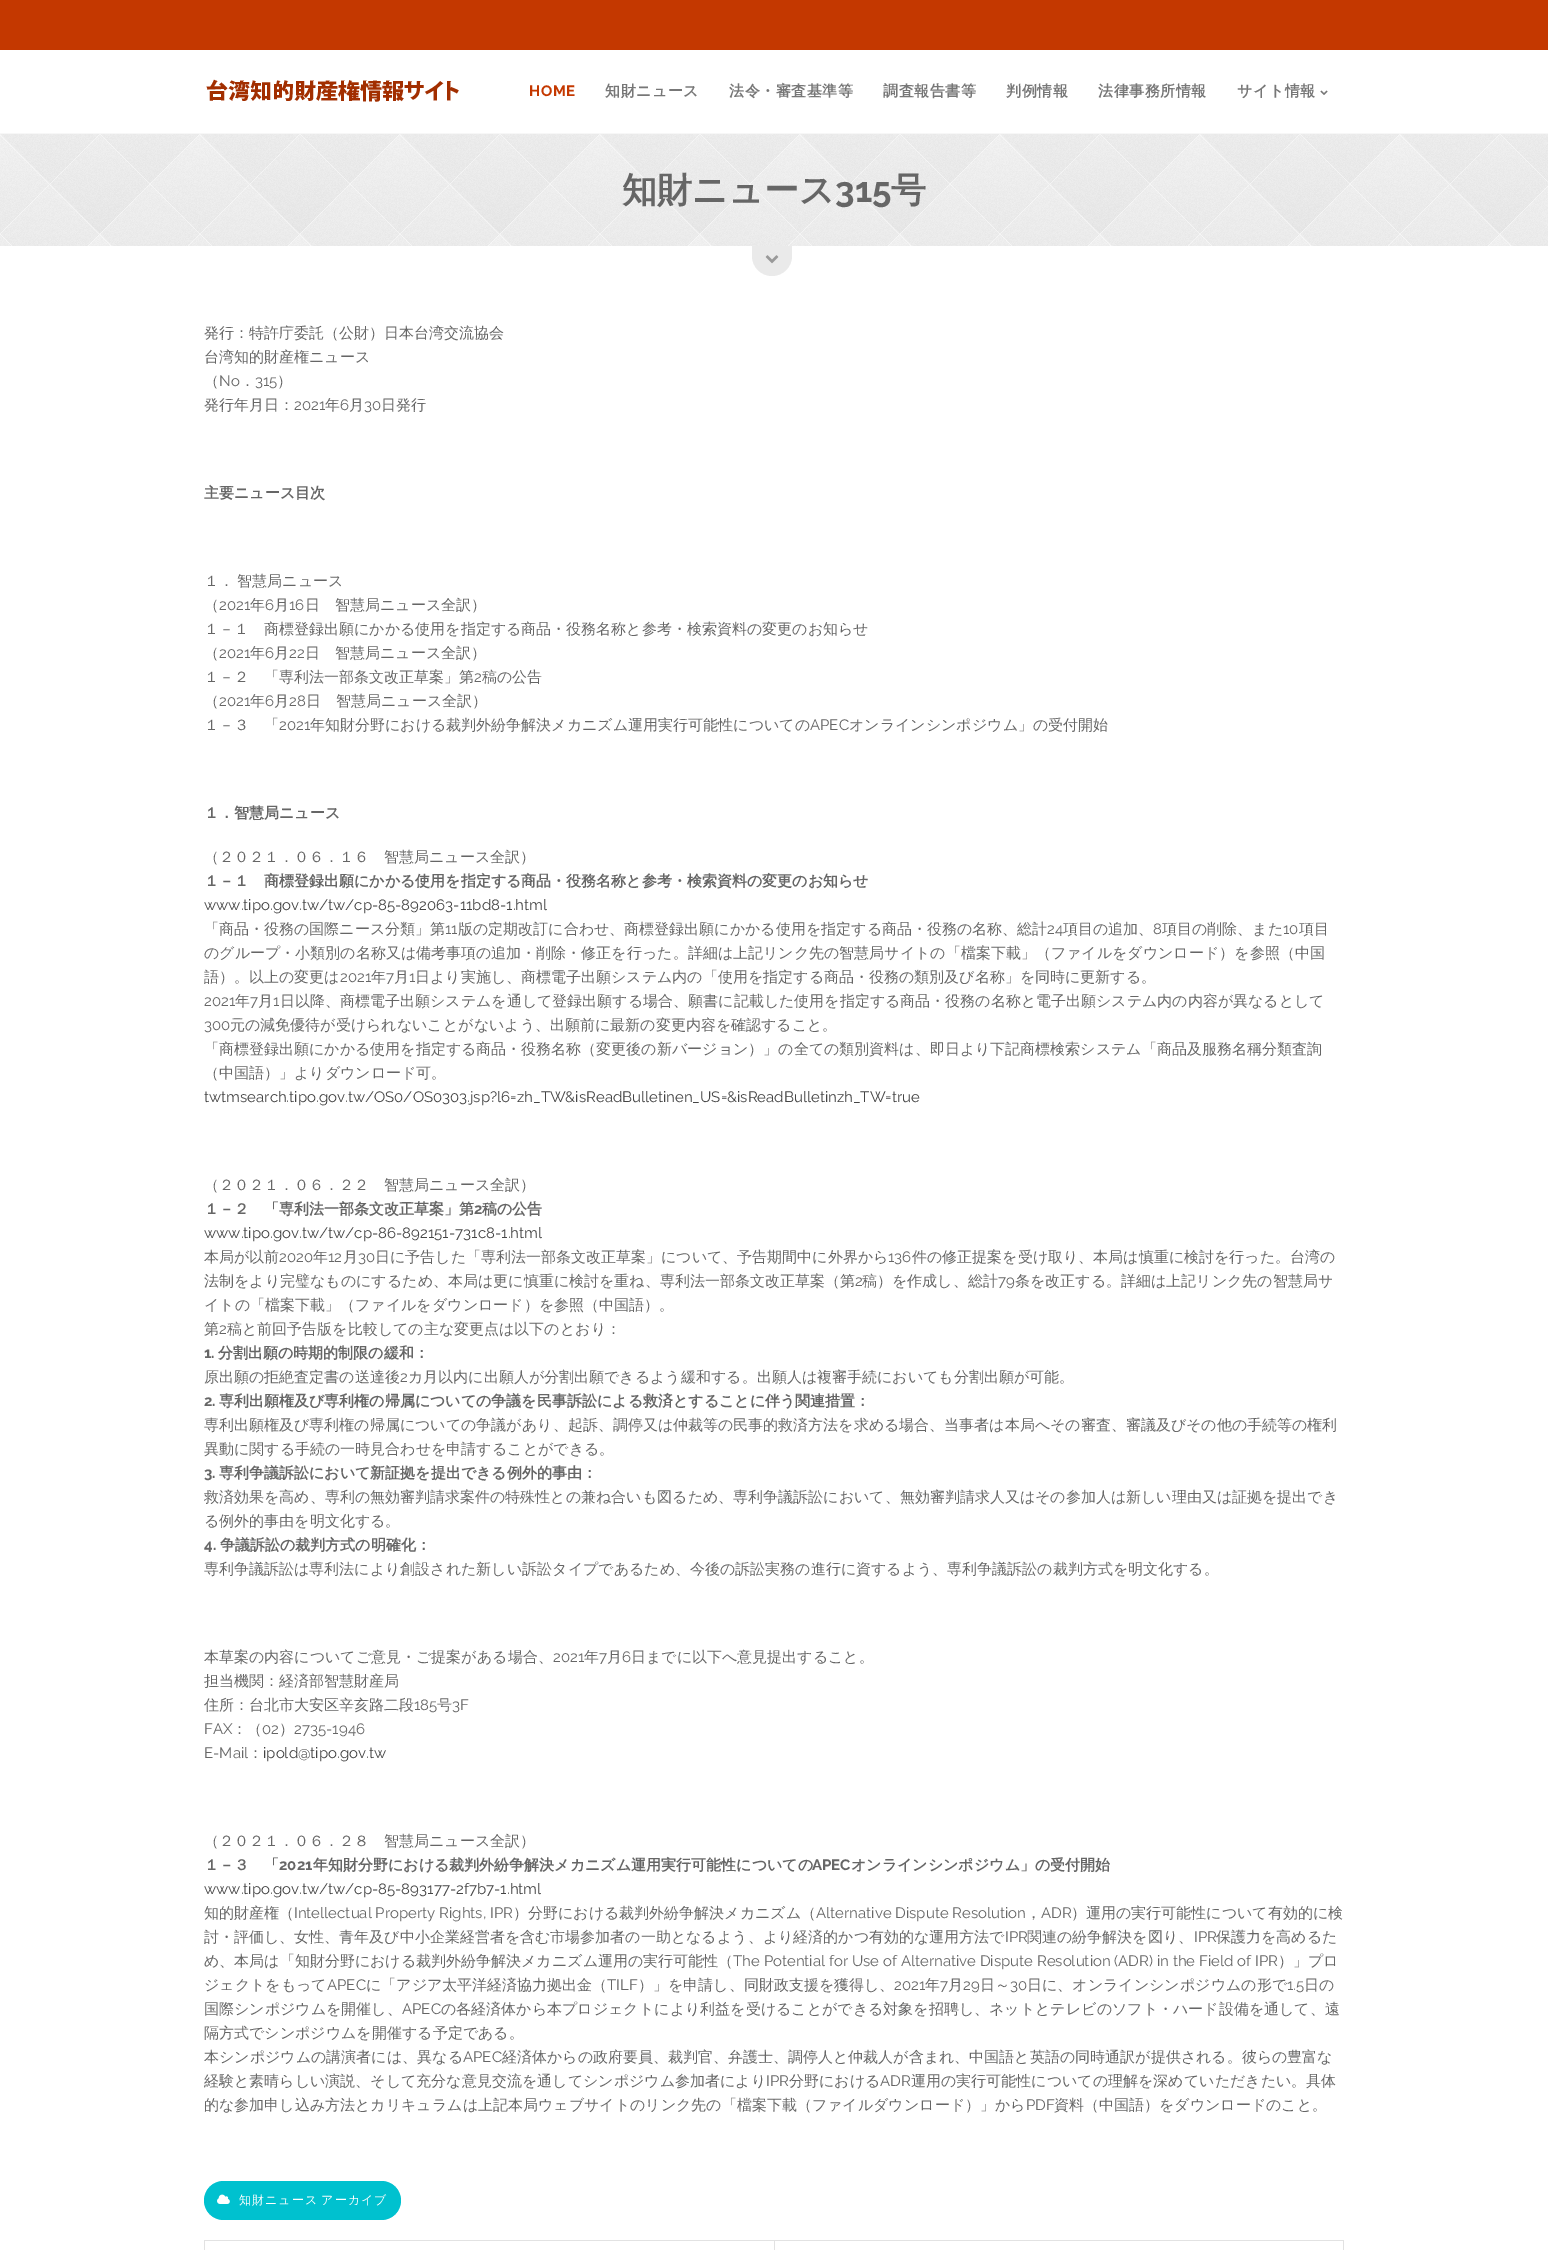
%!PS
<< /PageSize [1548 2250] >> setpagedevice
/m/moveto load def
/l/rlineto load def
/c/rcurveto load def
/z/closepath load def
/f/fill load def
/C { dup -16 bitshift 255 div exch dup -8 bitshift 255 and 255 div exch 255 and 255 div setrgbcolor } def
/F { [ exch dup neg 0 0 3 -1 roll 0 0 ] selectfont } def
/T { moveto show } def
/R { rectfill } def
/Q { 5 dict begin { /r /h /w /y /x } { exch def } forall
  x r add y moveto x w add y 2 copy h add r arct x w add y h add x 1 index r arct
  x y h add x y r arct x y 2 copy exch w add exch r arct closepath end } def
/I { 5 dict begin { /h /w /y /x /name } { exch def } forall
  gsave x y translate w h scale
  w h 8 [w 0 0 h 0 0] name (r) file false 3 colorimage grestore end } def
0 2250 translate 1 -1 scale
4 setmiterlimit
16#FFFFFF C
0 0 1548 2250 R
16#C43800 C
0 0 1548 50 R
16#F7F7F7 C
0 133 1548 1 R
(1.rgb) 206 79 253 23 I
/Raleway-Bold 15 F
16#C43800 C
529 96 m .5 0 (HOME) ashow
/WenQuanYiZenHei-Bold 15 F
16#777777 C
605 96 m .5 0 (知財ニュース) ashow
729 96 m .5 0 (法令・審査基準等) ashow
883 96 m .5 0 (調査報告書等) ashow
1006 96 m .5 0 (判例情報) ashow
1098 96 m .5 0 (法律事務所情報) ashow
1237 96 m .5 0 (サイト情報) ashow
(2.rgb) 1320 90 8 5 I
(3.rgb) 0 134 1548 112 I
/WenQuanYiZenHei-Bold 35 F
16#666666 C
(知財ニュース) 622 202 T
/Raleway-Bold 35 F
(315) 835 202 T
/WenQuanYiZenHei-Bold 35 F
(号) 891 202 T
16#EAEAEA C
752 246 m 40 0 l 0 10 l 0 11 -9 20 -20 20 c -11 0 -20 -9 -20 -20 c z f
(4.rgb) 765 255 14 9 I
/WenQuanYiZenHei-Medium 15 F
16#666666 C
(発行：特許庁委託（公財）日本台湾交流協会) 204 338 T
(台湾知的財産権ニュース) 204 362 T
(（) 204 386 T
/Raleway-Regular 15 F
(No) 219 386 T
/WenQuanYiZenHei-Medium 15 F
(．) 240 386 T
/Raleway-Regular 15 F
(315) 255 386 T
/WenQuanYiZenHei-Medium 15 F
(）) 277 386 T
(発行年月日：) 204 410 T
/Raleway-Regular 15 F
(2021) 294 410 T
/WenQuanYiZenHei-Medium 15 F
(年) 325 410 T
/Raleway-Regular 15 F
(6) 340 410 T
/WenQuanYiZenHei-Medium 15 F
(月) 349 410 T
/Raleway-Regular 15 F
(30) 364 410 T
/WenQuanYiZenHei-Medium 15 F
(日発行) 381 410 T
/WenQuanYiZenHei-Bold 15 F
(主要ニュース目次) 204 498 T
/WenQuanYiZenHei-Medium 15 F
204 586 m -1 0 32 (１． 智慧局ニュース) widthshow
(（) 204 610 T
/Raleway-Regular 15 F
(2021) 219 610 T
/WenQuanYiZenHei-Medium 15 F
(年) 250 610 T
/Raleway-Regular 15 F
(6) 265 610 T
/WenQuanYiZenHei-Medium 15 F
(月) 274 610 T
/Raleway-Regular 15 F
(16) 289 610 T
/WenQuanYiZenHei-Medium 15 F
(日　智慧局ニュース全訳）) 305 610 T
(１－１　商標登録出願にかかる使用を指定する商品・役務名称と参考・検索資料の変更のお知らせ) 204 634 T
(（) 204 658 T
/Raleway-Regular 15 F
(2021) 219 658 T
/WenQuanYiZenHei-Medium 15 F
(年) 250 658 T
/Raleway-Regular 15 F
(6) 265 658 T
/WenQuanYiZenHei-Medium 15 F
(月) 274 658 T
/Raleway-Regular 15 F
(22) 289 658 T
/WenQuanYiZenHei-Medium 15 F
(日　智慧局ニュース全訳）) 305 658 T
(１－２　「専利法一部条文改正草案」第) 204 682 T
/Raleway-Regular 15 F
(2) 474 682 T
/WenQuanYiZenHei-Medium 15 F
(稿の公告) 482 682 T
(（) 204 706 T
/Raleway-Regular 15 F
(2021) 219 706 T
/WenQuanYiZenHei-Medium 15 F
(年) 250 706 T
/Raleway-Regular 15 F
(6) 265 706 T
/WenQuanYiZenHei-Medium 15 F
(月) 274 706 T
/Raleway-Regular 15 F
(28) 289 706 T
/WenQuanYiZenHei-Medium 15 F
(日　智慧局ニュース全訳）) 306 706 T
(１－３　「) 204 730 T
/Raleway-Regular 15 F
(2021) 279 730 T
/WenQuanYiZenHei-Medium 15 F
(年知財分野における裁判外紛争解決メカニズム運用実行可能性についての) 310 730 T
/Raleway-Regular 15 F
(APEC) 810 730 T
/WenQuanYiZenHei-Medium 15 F
(オンラインシンポジウム」の受付開始) 849 730 T
/WenQuanYiZenHei-Bold 15 F
(１．智慧局ニュース) 204 818 T
/WenQuanYiZenHei-Medium 15 F
(（２０２１．０６．１６　智慧局ニュース全訳）) 204 862 T
/WenQuanYiZenHei-Bold 15 F
(１－１　商標登録出願にかかる使用を指定する商品・役務名称と参考・検索資料の変更のお知らせ) 204 886 T
/Raleway-Regular 15 F
16#444444 C
(www.tipo.gov.tw/tw/cp-85-892063-11bd8-1.html) 204 910 T
/WenQuanYiZenHei-Medium 15 F
16#666666 C
(「商品・役務の国際ニース分類」第) 204 934 T
/Raleway-Regular 15 F
(11) 445 934 T
/WenQuanYiZenHei-Medium 15 F
(版の定期改訂に合わせ、商標登録出願にかかる使用を指定する商品・役務の名称、総計) 458 934 T
/Raleway-Regular 15 F
(24) 1047 934 T
/WenQuanYiZenHei-Medium 15 F
(項目の追加、) 1063 934 T
/Raleway-Regular 15 F
(8) 1153 934 T
/WenQuanYiZenHei-Medium 15 F
(項目の削除、また) 1162 934 T
/Raleway-Regular 15 F
(10) 1283 934 T
/WenQuanYiZenHei-Medium 15 F
(項目) 1299 934 T
(のグループ・小類別の名称又は備考事項の追加・削除・修正を行った。詳細は上記リンク先の智慧局サイトの「檔案下載」（ファイルをダウンロード）を参照（中国) 204 958 T
(語）。以上の変更は) 204 982 T
/Raleway-Regular 15 F
(2021) 340 982 T
/WenQuanYiZenHei-Medium 15 F
(年) 371 982 T
/Raleway-Regular 15 F
(7) 386 982 T
/WenQuanYiZenHei-Medium 15 F
(月) 394 982 T
/Raleway-Regular 15 F
(1) 409 982 T
/WenQuanYiZenHei-Medium 15 F
(日より実施し、商標電子出願システム内の「使用を指定する商品・役務の類別及び名称」を同時に更新する。) 415 982 T
/Raleway-Regular 15 F
(2021) 204 1006 T
/WenQuanYiZenHei-Medium 15 F
(年) 235 1006 T
/Raleway-Regular 15 F
(7) 250 1006 T
/WenQuanYiZenHei-Medium 15 F
(月) 258 1006 T
/Raleway-Regular 15 F
(1) 273 1006 T
/WenQuanYiZenHei-Medium 15 F
(日以降、商標電子出願システムを通して登録出願する場合、願書に記載した使用を指定する商品・役務の名称と電子出願システム内の内容が異なるとして) 280 1006 T
/Raleway-Regular 15 F
(300) 204 1030 T
/WenQuanYiZenHei-Medium 15 F
(元の減免優待が受けられないことがないよう、出願前に最新の変更内容を確認すること。) 230 1030 T
(「商標登録出願にかかる使用を指定する商品・役務名称（変更後の新バージョン）」の全ての類別資料は、即日より下記商標検索システム「商品及服務名稱分類査詢) 204 1054 T
(（中国語）」よりダウンロード可。) 204 1078 T
/Raleway-Regular 15 F
16#444444 C
(twtmsearch.tipo.gov.tw/OS0/OS0303.jsp?l6=zh_TW&isReadBulletinen_US=&isReadBulletinzh_TW=true) 204 1102 T
/WenQuanYiZenHei-Medium 15 F
16#666666 C
(（２０２１．０６．２２　智慧局ニュース全訳）) 204 1190 T
/WenQuanYiZenHei-Bold 15 F
(１－２　「専利法一部条文改正草案」第) 204 1214 T
/Raleway-Bold 15 F
(2) 474 1214 T
/WenQuanYiZenHei-Bold 15 F
(稿の公告) 482 1214 T
/Raleway-Regular 15 F
16#444444 C
(www.tipo.gov.tw/tw/cp-86-892151-731c8-1.html) 204 1238 T
/WenQuanYiZenHei-Medium 15 F
16#666666 C
(本局が以前) 204 1262 T
/Raleway-Regular 15 F
(2020) 279 1262 T
/WenQuanYiZenHei-Medium 15 F
(年) 313 1262 T
/Raleway-Regular 15 F
(12) 328 1262 T
/WenQuanYiZenHei-Medium 15 F
(月) 343 1262 T
/Raleway-Regular 15 F
(30) 358 1262 T
/WenQuanYiZenHei-Medium 15 F
(日に予告した「専利法一部条文改正草案」について、予告期間中に外界から) 375 1262 T
/Raleway-Regular 15 F
(136) 888 1262 T
/WenQuanYiZenHei-Medium 15 F
(件の修正提案を受け取り、本局は慎重に検討を行った。台湾の) 912 1262 T
(法制をより完璧なものにするため、本局は更に慎重に検討を重ね、専利法一部条文改正草案（第) 204 1286 T
/Raleway-Regular 15 F
(2) 855 1286 T
/WenQuanYiZenHei-Medium 15 F
(稿）を作成し、総計) 862 1286 T
/Raleway-Regular 15 F
(79) 998 1286 T
/WenQuanYiZenHei-Medium 15 F
(条を改正する。詳細は上記リンク先の智慧局サ) 1015 1286 T
(イトの「檔案下載」（ファイルをダウンロード）を参照（中国語）。) 204 1310 T
(第) 204 1334 T
/Raleway-Regular 15 F
(2) 219 1334 T
/WenQuanYiZenHei-Medium 15 F
(稿と前回予告版を比較しての主な変更点は以下のとおり：) 227 1334 T
/Raleway-Bold 15 F
(1.) 204 1358 T
/WenQuanYiZenHei-Bold 15 F
(分割出願の時期的制限の緩和：) 218 1358 T
/WenQuanYiZenHei-Medium 15 F
(原出願の拒絶査定書の送達後) 204 1382 T
/Raleway-Regular 15 F
(2) 400 1382 T
/WenQuanYiZenHei-Medium 15 F
(カ月以内に出願人が分割出願できるよう緩和する。出願人は複審手続においても分割出願が可能。) 408 1382 T
/Raleway-Bold 15 F
(2.) 204 1406 T
/WenQuanYiZenHei-Bold 15 F
(専利出願権及び専利権の帰属についての争議を民事訴訟による救済とすることに伴う関連措置：) 219 1406 T
/WenQuanYiZenHei-Medium 15 F
(専利出願権及び専利権の帰属についての争議があり、起訴、調停又は仲裁等の民事的救済方法を求める場合、当事者は本局へその審査、審議及びその他の手続等の権利) 204 1430 T
(異動に関する手続の一時見合わせを申請することができる。) 204 1454 T
/Raleway-Bold 15 F
(3.) 204 1478 T
/WenQuanYiZenHei-Bold 15 F
(専利争議訴訟において新証拠を提出できる例外的事由：) 219 1478 T
/WenQuanYiZenHei-Medium 15 F
(救済効果を高め、専利の無効審判請求案件の特殊性との兼ね合いも図るため、専利争議訴訟において、無効審判請求人又はその参加人は新しい理由又は証拠を提出でき) 204 1502 T
(る例外的事由を明文化する。) 204 1526 T
/Raleway-Bold 15 F
(4.) 204 1550 T
/WenQuanYiZenHei-Bold 15 F
(争議訴訟の裁判方式の明確化：) 220 1550 T
/WenQuanYiZenHei-Medium 15 F
(専利争議訴訟は専利法により創設された新しい訴訟タイプであるため、今後の訴訟実務の進行に資するよう、専利争議訴訟の裁判方式を明文化する。) 204 1574 T
(本草案の内容についてご意見・ご提案がある場合、) 204 1662 T
/Raleway-Regular 15 F
(2021) 553 1662 T
/WenQuanYiZenHei-Medium 15 F
(年) 584 1662 T
/Raleway-Regular 15 F
(7) 599 1662 T
/WenQuanYiZenHei-Medium 15 F
(月) 607 1662 T
/Raleway-Regular 15 F
(6) 622 1662 T
/WenQuanYiZenHei-Medium 15 F
(日までに以下へ意見提出すること。) 631 1662 T
(担当機関：経済部智慧財産局) 204 1686 T
(住所：台北市大安区辛亥路二段) 204 1710 T
/Raleway-Regular 15 F
(185) 414 1710 T
/WenQuanYiZenHei-Medium 15 F
(号) 437 1710 T
/Raleway-Regular 15 F
(3F) 452 1710 T
(FAX) 204 1734 T
/WenQuanYiZenHei-Medium 15 F
(：（) 232 1734 T
/Raleway-Regular 15 F
(02) 262 1734 T
/WenQuanYiZenHei-Medium 15 F
(）) 279 1734 T
/Raleway-Regular 15 F
(2735-1946) 294 1734 T
(E-Mail) 204 1758 T
/WenQuanYiZenHei-Medium 15 F
(：) 248 1758 T
/Raleway-Regular 15 F
16#444444 C
(ipold@tipo.gov.tw) 263 1758 T
/WenQuanYiZenHei-Medium 15 F
16#666666 C
(（２０２１．０６．２８　智慧局ニュース全訳）) 204 1846 T
/WenQuanYiZenHei-Bold 15 F
(１－３　「) 204 1870 T
/Raleway-Bold 15 F
(2021) 279 1870 T
/WenQuanYiZenHei-Bold 15 F
(年知財分野における裁判外紛争解決メカニズム運用実行可能性についての) 313 1870 T
/Raleway-Bold 15 F
(APEC) 812 1870 T
/WenQuanYiZenHei-Bold 15 F
(オンラインシンポジウム」の受付開始) 851 1870 T
/Raleway-Regular 15 F
16#444444 C
(www.tipo.gov.tw/tw/cp-85-893177-2f7b7-1.html) 204 1894 T
/WenQuanYiZenHei-Medium 15 F
16#666666 C
(知的財産権（) 204 1918 T
/Raleway-Regular 15 F
(Intellectual Property Rights, IPR) 294 1918 T
/WenQuanYiZenHei-Medium 15 F
(）分野における裁判外紛争解決メカニズム（) 513 1918 T
/Raleway-Regular 15 F
(Alternative Dispute Resolution) 816 1918 T
/WenQuanYiZenHei-Medium 15 F
(，) 1026 1918 T
/Raleway-Regular 15 F
(ADR) 1041 1918 T
/WenQuanYiZenHei-Medium 15 F
(）運用の実行可能性について有効的に検) 1071 1918 T
(討・評価し、女性、青年及び中小企業経営者を含む市場参加者の一助となるよう、より経済的かつ有効的な運用方法で) 204 1942 T
/Raleway-Regular 15 F
(IPR) 1005 1942 T
/WenQuanYiZenHei-Medium 15 F
(関連の紛争解決を図り、) 1027 1942 T
/Raleway-Regular 15 F
(IPR) 1194 1942 T
/WenQuanYiZenHei-Medium 15 F
(保護力を高めるた) 1216 1942 T
(め、本局は「知財分野における裁判外紛争解決メカニズム運用の実行可能性（) 204 1966 T
/Raleway-Regular 15 F
(The Potential for Use of Alternative Dispute Resolution \(ADR\) in the Field of IPR) 733 1966 T
/WenQuanYiZenHei-Medium 15 F
(）」プロ) 1278 1966 T
(ジェクトをもって) 204 1990 T
/Raleway-Regular 15 F
(APEC) 327 1990 T
/WenQuanYiZenHei-Medium 15 F
(に「アジア太平洋経済協力拠出金（) 366 1990 T
/Raleway-Regular 15 F
(TILF) 607 1990 T
/WenQuanYiZenHei-Medium 15 F
(）」を申請し、同財政支援を獲得し、) 638 1990 T
/Raleway-Regular 15 F
(2021) 894 1990 T
/WenQuanYiZenHei-Medium 15 F
(年) 925 1990 T
/Raleway-Regular 15 F
(7) 940 1990 T
/WenQuanYiZenHei-Medium 15 F
(月) 948 1990 T
/Raleway-Regular 15 F
(29) 963 1990 T
/WenQuanYiZenHei-Medium 15 F
(日～) 980 1990 T
/Raleway-Regular 15 F
(30) 1010 1990 T
/WenQuanYiZenHei-Medium 15 F
(日に、オンラインシンポジウムの形で) 1027 1990 T
/Raleway-Regular 15 F
(1.5) 1287 1990 T
/WenQuanYiZenHei-Medium 15 F
(日の) 1304 1990 T
(国際シンポジウムを開催し、) 204 2014 T
/Raleway-Regular 15 F
(APEC) 402 2014 T
/WenQuanYiZenHei-Medium 15 F
(の各経済体から本プロジェクトにより利益を受けることができる対象を招聘し、ネットとテレビのソフト・ハード設備を通して、遠) 441 2014 T
(隔方式でシンポジウムを開催する予定である。) 204 2038 T
(本シンポジウムの講演者には、異なる) 204 2062 T
/Raleway-Regular 15 F
(APEC) 463 2062 T
/WenQuanYiZenHei-Medium 15 F
(経済体からの政府要員、裁判官、弁護士、調停人と仲裁人が含まれ、中国語と英語の同時通訳が提供される。彼らの豊富な) 502 2062 T
(経験と素晴らしい演説、そして充分な意見交流を通してシンポジウム参加者により) 204 2086 T
/Raleway-Regular 15 F
(IPR) 766 2086 T
/WenQuanYiZenHei-Medium 15 F
(分野における) 789 2086 T
/Raleway-Regular 15 F
(ADR) 880 2086 T
/WenQuanYiZenHei-Medium 15 F
(運用の実行可能性についての理解を深めていただきたい。具体) 911 2086 T
(的な参加申し込み方法とカリキュラムは上記本局ウェブサイトのリンク先の「檔案下載（ファイルダウンロード）」から) 204 2110 T
/Raleway-Regular 15 F
(PDF) 1026 2110 T
/WenQuanYiZenHei-Medium 15 F
(資料（中国語）をダウンロードのこと。) 1054 2110 T
16#00C1CF C
204 2181 197 39 19.5 Q f
(5.rgb) 217 2194 13 10 I
/WenQuanYiZenHei-Medium 12 F
16#FFFFFF C
239 2204 m -1 0 32 1 0 (知財ニュース アーカイブ) awidthshow
16#E2E2E2 C
204 2240 1140 1 R
1343 2240 1 10 R
204 2240 1 10 R
774 2240 1 10 R
showpage
